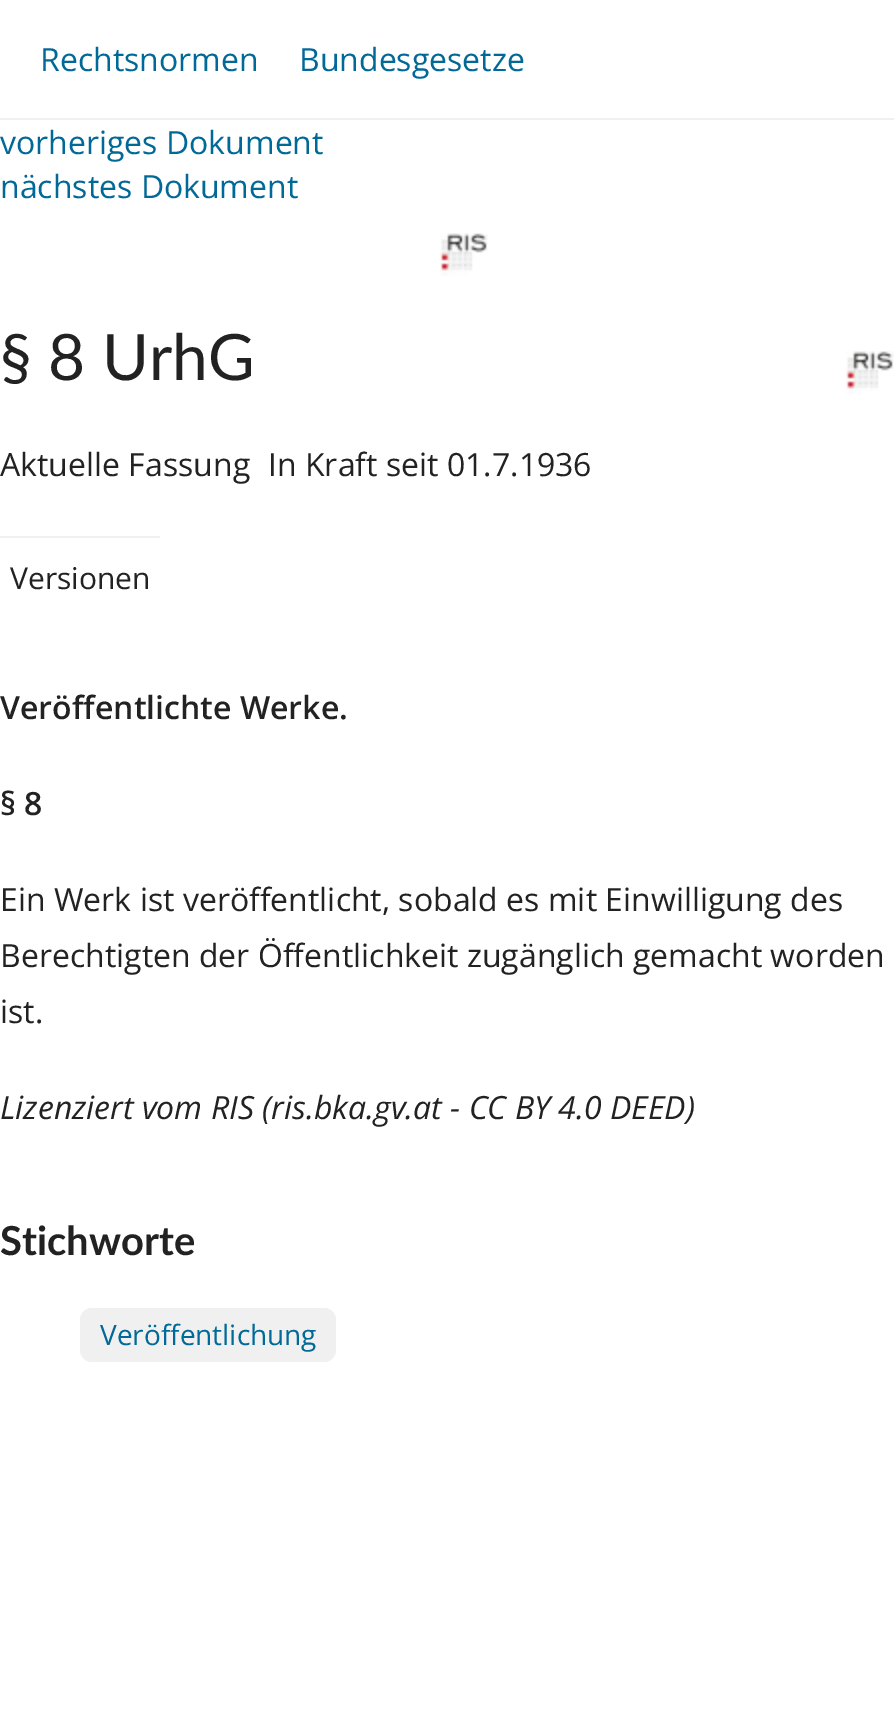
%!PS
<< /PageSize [894 1714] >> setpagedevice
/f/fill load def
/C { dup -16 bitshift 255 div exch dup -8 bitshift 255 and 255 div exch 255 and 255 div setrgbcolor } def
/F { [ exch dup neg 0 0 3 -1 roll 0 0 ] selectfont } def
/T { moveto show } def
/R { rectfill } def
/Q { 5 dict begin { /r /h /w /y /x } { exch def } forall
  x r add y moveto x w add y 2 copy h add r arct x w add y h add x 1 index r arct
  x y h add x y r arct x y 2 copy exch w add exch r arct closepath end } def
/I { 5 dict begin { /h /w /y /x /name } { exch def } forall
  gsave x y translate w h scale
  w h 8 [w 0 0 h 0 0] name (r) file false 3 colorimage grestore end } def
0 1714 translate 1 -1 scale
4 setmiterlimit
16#FFFFFF C
0 0 894 1714 R
16#F0F0F0 C
0 118 894 2 R
/OpenSans-Regular 32 F
16#006997 C
(Rechtsnormen) 40 71 T
(Bundesgesetze) 299 71 T
(vorheriges Dokument) 0 154 T
(nächstes Dokument) 0 198 T
(1.rgb) 440 233 48 43 I
/Lato-Regular 64 F
16#222222 C
(§ 8 UrhG) 0 380 T
(1.rgb) 846 351 48 43 I
/OpenSans-Regular 32 F
(Aktuelle Fassung) 0 476 T
(In Kraft seit 01.7.1936) 268 476 T
16#F0F0F0 C
0 536 160 2 R
/OpenSans-Regular 30 F
16#222222 C
(Versionen) 10 589 T
/OpenSans-SemiBold 32 F
(Veröffentlichte Werke.) 0 719 T
(§ 8) 0 815 T
/OpenSans-Regular 32 F
(Ein Werk ist veröffentlicht, sobald es mit Einwilligung des) 0 911 T
(Berechtigten der Öffentlichkeit zugänglich gemacht worden) 0 967 T
(ist.) 0 1023 T
/OpenSans-Italic 32 F
(Lizenziert vom RIS \(ris.bka.gv.at - CC BY 4.0 DEED\)) 0 1119 T
/Lato-Bold 40 F
(Stichworte) 0 1255 T
16#F0F0F0 C
80 1308 256 54 12 Q f
/OpenSans-Regular 28 F
16#006997 C
(Veröffentlichung) 100 1345 T
showpage
